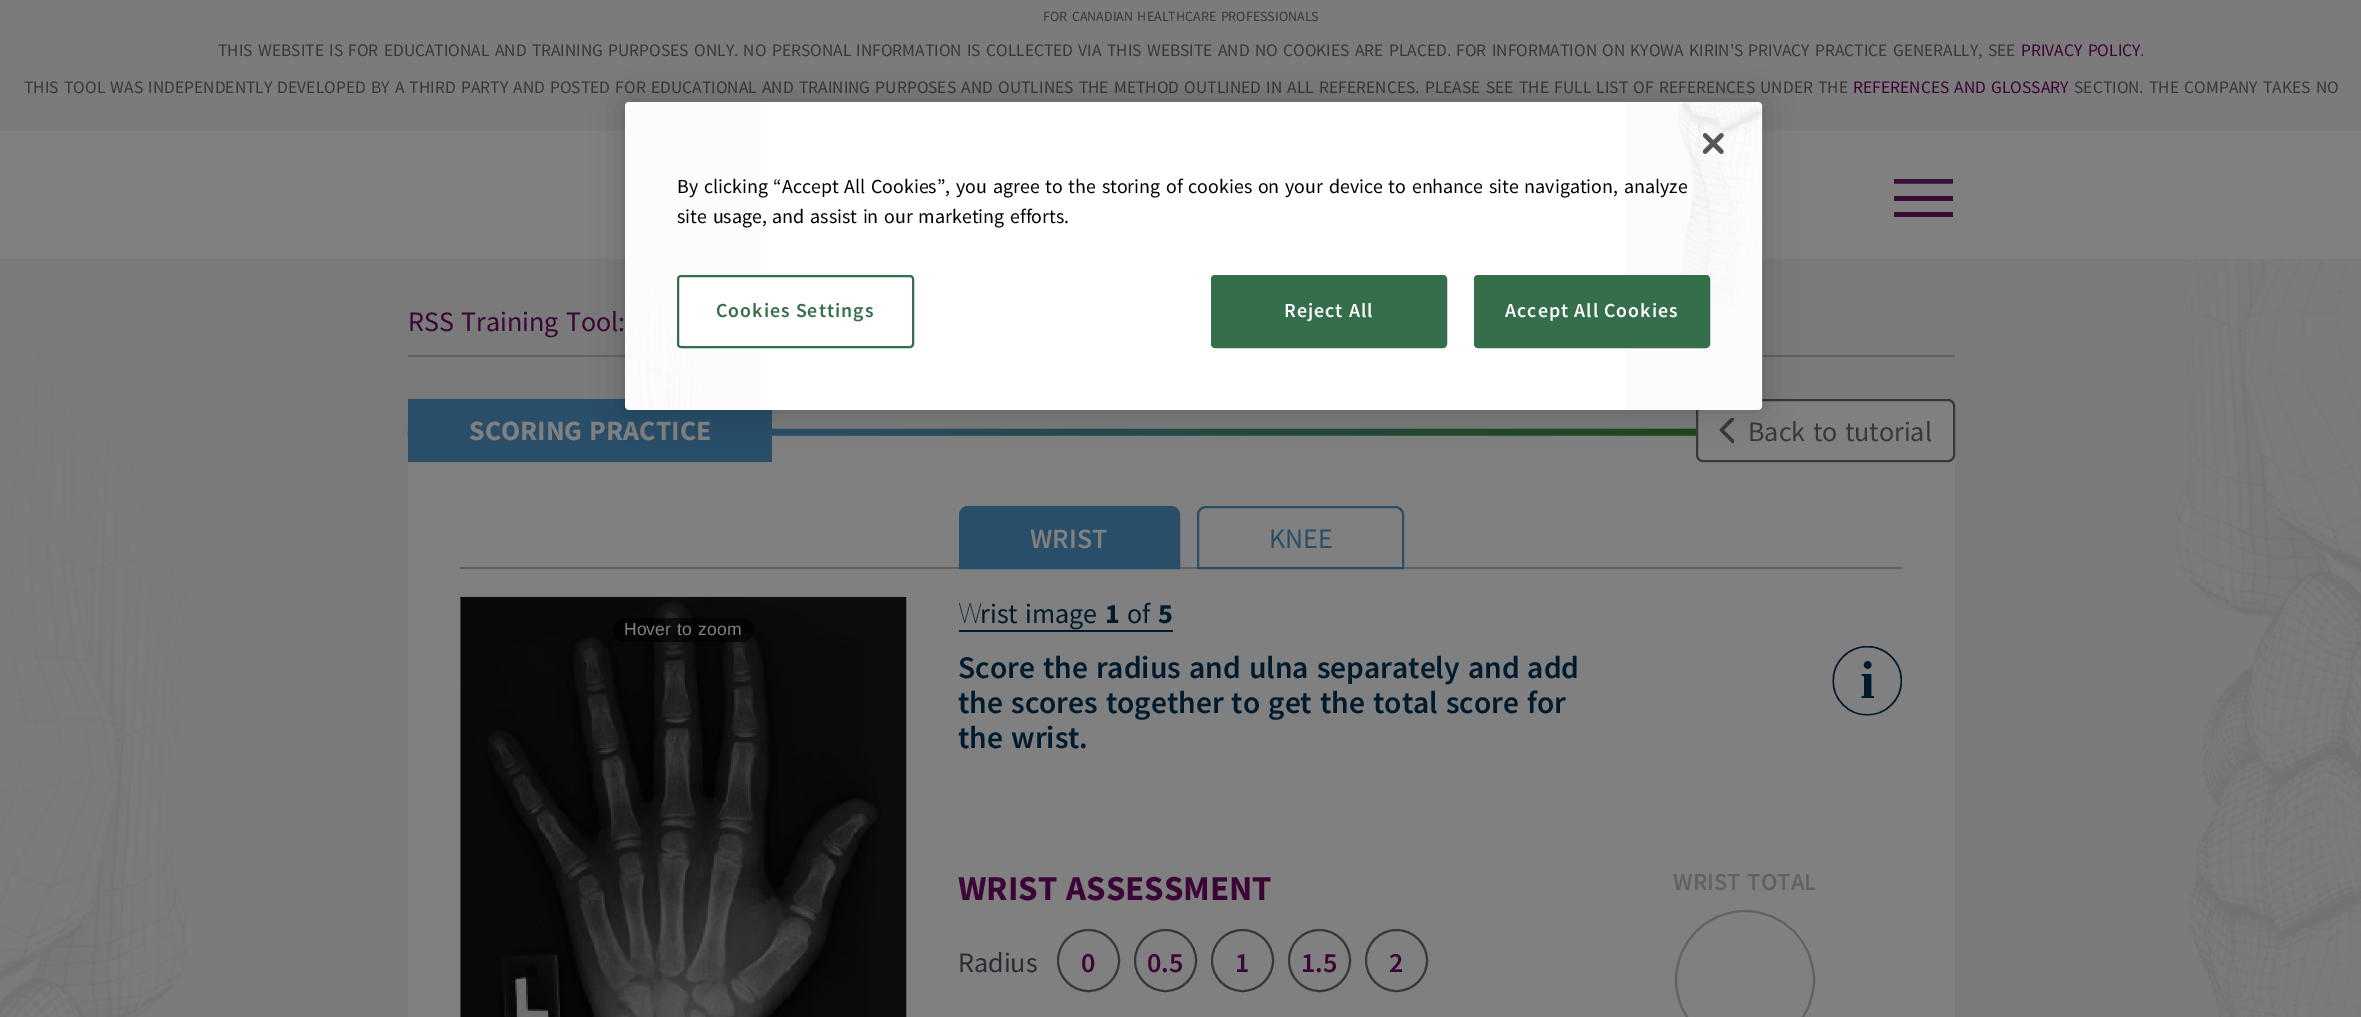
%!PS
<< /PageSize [2361 1017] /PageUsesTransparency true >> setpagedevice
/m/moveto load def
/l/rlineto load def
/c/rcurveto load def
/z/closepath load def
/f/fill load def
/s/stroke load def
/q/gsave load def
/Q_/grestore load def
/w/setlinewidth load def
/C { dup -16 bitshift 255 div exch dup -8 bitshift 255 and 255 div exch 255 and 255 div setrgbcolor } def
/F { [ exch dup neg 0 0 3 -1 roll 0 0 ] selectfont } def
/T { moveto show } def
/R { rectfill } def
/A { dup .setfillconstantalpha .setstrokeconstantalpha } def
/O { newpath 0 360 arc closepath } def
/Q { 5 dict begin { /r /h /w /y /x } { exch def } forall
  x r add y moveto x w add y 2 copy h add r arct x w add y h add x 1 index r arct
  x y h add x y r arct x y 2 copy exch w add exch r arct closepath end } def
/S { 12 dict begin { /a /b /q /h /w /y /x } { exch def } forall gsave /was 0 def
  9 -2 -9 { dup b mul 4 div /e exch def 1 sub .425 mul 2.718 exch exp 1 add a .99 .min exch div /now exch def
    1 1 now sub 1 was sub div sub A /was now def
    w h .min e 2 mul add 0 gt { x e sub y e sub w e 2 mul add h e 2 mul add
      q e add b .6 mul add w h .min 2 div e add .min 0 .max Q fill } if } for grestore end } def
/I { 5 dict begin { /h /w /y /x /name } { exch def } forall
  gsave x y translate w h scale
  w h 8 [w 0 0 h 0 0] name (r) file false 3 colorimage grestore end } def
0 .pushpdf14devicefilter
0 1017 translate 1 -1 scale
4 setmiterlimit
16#7B7B7B C
0 0 2361 1017 R
(1.rgb) 0 259 2361 758 I
/SourceSansPro-Regular 14 F
16#383838 C
1043 21 m 1.75 0 32 (FOR CANADIAN HEALTHCARE PROFESSIONALS) widthshow
/SourceSansPro-Regular 17.5 F
218 56 m 1.75 0 32 (THIS WEBSITE IS FOR EDUCATIONAL AND TRAINING PURPOSES ONLY. NO PERSONAL INFORMATION IS COLLECTED VIA THIS WEBSITE AND NO COOKIES ARE PLACED. FOR INFORMATION ON KYOWA KIRIN'S PRIVACY PRACTICE GENERALLY, SEE) widthshow
16#3C0537 C
2021 56 m 1.75 0 32 (PRIVACY POLICY) widthshow
16#383838 C
(.) 2140 56 T
24 93 m 1.75 0 32 (THIS TOOL WAS INDEPENDENTLY DEVELOPED BY A THIRD PARTY AND POSTED FOR EDUCATIONAL AND TRAINING PURPOSES AND OUTLINES THE METHOD OUTLINED IN ALL REFERENCES. PLEASE SEE THE FULL LIST OF REFERENCES UNDER THE) widthshow
16#3C0537 C
1853 93 m 1.75 0 32 (REFERENCES AND GLOSSARY) widthshow
16#383838 C
2074 93 m 1.75 0 32 (SECTION. THE COMPANY TAKES NO) widthshow
16#808080 C
0 131 2361 128 R
q
1894 179 59 38 rectclip
16#370F35 C
5.2 w
1893.5 181 m 59.5 0 l s
Q_
16#370F35 C
1894 196 59 5 R
1894 212 59 5 R
16#616264 C
408 355 1547 2 R
/SourceSansPro-Regular 28 F
16#3C0537 C
408 331 m 1.75 0 32 (RSS Training Tool:) widthshow
16#808080 C
408 436 1547 581 R
(2.rgb) 407 428 1289 8 I
16#284E69 C
408 399 364 63 R
/SourceSansPro-Bold 28 F
16#808080 C
469 440 m 1.75 0 32 (SCORING PRACTICE) widthshow
1697 400 257 61 6 Q q f Q_
16#383838 C
2 w
s
q
1719 418 15 27 rectclip
3.5 w
1 setlinecap
1 setlinejoin
1733 441.5 m -11.5 -11.5 l 11.5 -11.5 l s
Q_
/SourceSansPro-Regular 28 F
1748 441 m 1.75 0 32 (Back to tutorial) widthshow
16#616264 C
460 567 1442 2 R
16#284E69 C
968 507 m 203 0 l 4.5 0 8 3.5 8 8 c 0 53 l -219 0 l 0 -53 l 0 -4.5 3.5 -8 8 -8 c z q f Q_
s
/SourceSansPro-SemiBold 28 F
16#808080 C
(WRIST) 1030 548 T
16#284E69 C
1206 507 m 189 0 l 4.5 0 8 3.5 8 8 c 0 53 l -205 0 l 0 -53 l 0 -4.5 3.5 -8 8 -8 c z s
/SourceSansPro-Regular 28 F
(KNEE) 1269 548 T
(3.rgb) 460 596 447 421 I
0.65 A
16#000000 C
613 618 141 24 12 Q f
/LiberationSans-Regular 17.5 F
1 A
16#808080 C
624 635 m 1.75 0 32 (Hover to zoom) widthshow
16#001A2D C
959 630 214 2 R
/NotoSans-Thin 28 F
(W) 958 623 T
/SourceSansPro-Regular 28 F
980 623 m 1.75 0 32 (rist image) widthshow
/SourceSansPro-Bold 28 F
(1) 1105 623 T
/SourceSansPro-Regular 28 F
(of) 1127 623 T
/SourceSansPro-Bold 28 F
(5) 1158 623 T
/SourceSansPro-SemiBold 31.5 F
958 678 m 1.75 0 32 (Score the radius and ulna separately and add) widthshow
958 713 m 1.75 0 32 (the scores together to get the total score for) widthshow
958 748 m 1.75 0 32 (the wrist.) widthshow
(4.rgb) 1832 646 70 70 I
/SourceSansPro-Bold 35 F
16#3C0537 C
958 900 m 1.75 0 32 (WRIST ASSESSMENT) widthshow
/SourceSansPro-Regular 28 F
16#2A2C32 C
(Radius) 958 972 T
16#383838 C
1088.5 960.5 30.5 O s
/SourceSansPro-SemiBold 28 F
16#3C0537 C
(0) 1081 972 T
16#383838 C
1165.5 960.5 30.5 O s
16#3C0537 C
(0.5) 1147 972 T
16#383838 C
1242.5 960.5 30.5 O s
16#3C0537 C
(1) 1235 972 T
16#383838 C
1319.5 960.5 30.5 O s
16#3C0537 C
(1.5) 1301 972 T
16#383838 C
1396.5 960.5 30.5 O s
16#3C0537 C
(2) 1389 972 T
/SourceSansPro-SemiBold 24.5 F
16#616264 C
1673 890 m 1.75 0 32 (WRIST TOTAL) widthshow
1745 980 69 O s
16#000000 C
625 102 1137 308 4 16 .2 S
16#FFFFFF C
625 102 1137 308 4 Q f
(5.rgb) 625 102 1138 308 I
(6.rgb) 1703 133 21 21 I
/SourceSansPro-Regular 19.92 F
16#000000 C
677 193 m 1.75 0 32 (By clicking “Accept All Cookies”, you agree to the storing of cookies on your device to enhance site navigation, analyze) widthshow
677 223 m 1.75 0 32 (site usage, and assist in our marketing efforts.) widthshow
16#FFFFFF C
678 276 235 71 3 Q q f Q_
16#346E4A C
s
/SourceSansPro-SemiBold 19.92 F
716 317 m 1 0 (Cookies Settings) ashow
1212 276 234 71 3 Q q f Q_
s
16#FFFFFF C
1284 317 m 1 0 (Reject All) ashow
16#346E4A C
1475 276 234 71 3 Q q f Q_
s
16#FFFFFF C
1505 317 m 1 0 (Accept All Cookies) ashow
.poppdf14devicefilter showpage
